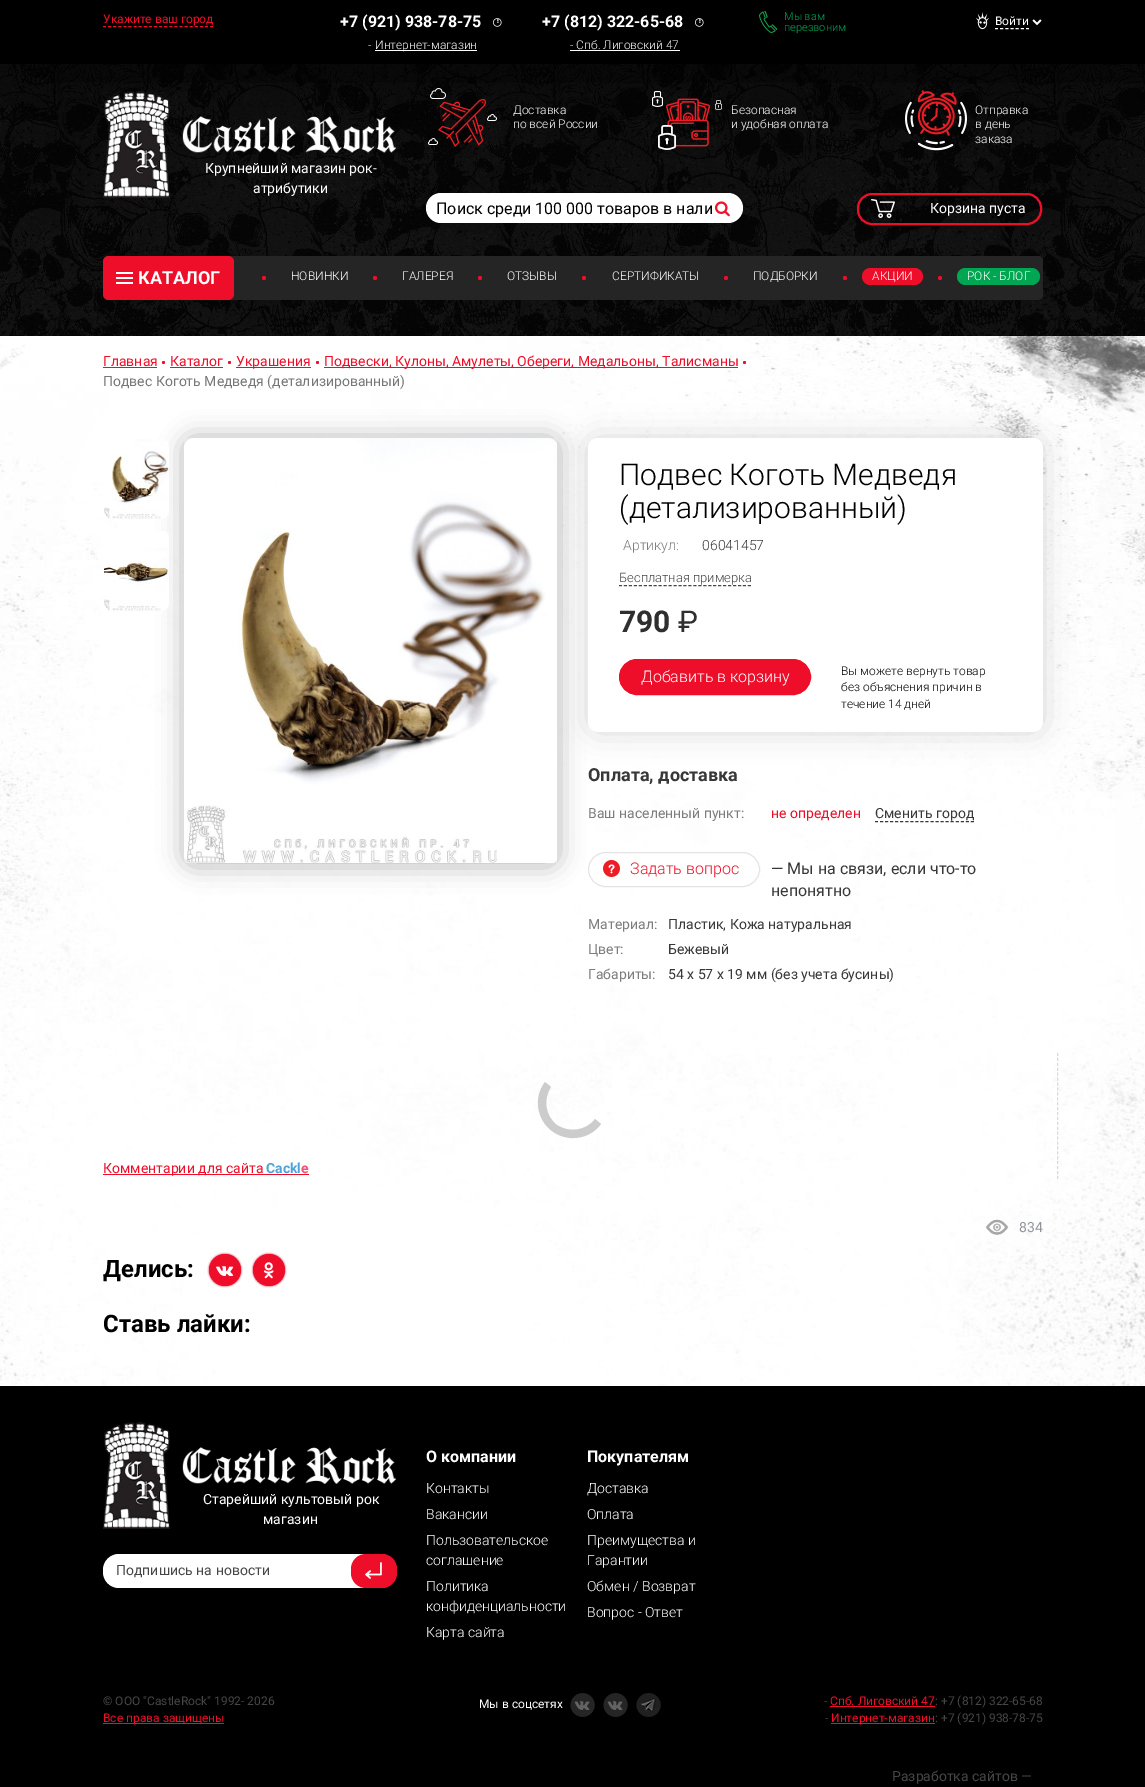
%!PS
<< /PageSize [1145 1787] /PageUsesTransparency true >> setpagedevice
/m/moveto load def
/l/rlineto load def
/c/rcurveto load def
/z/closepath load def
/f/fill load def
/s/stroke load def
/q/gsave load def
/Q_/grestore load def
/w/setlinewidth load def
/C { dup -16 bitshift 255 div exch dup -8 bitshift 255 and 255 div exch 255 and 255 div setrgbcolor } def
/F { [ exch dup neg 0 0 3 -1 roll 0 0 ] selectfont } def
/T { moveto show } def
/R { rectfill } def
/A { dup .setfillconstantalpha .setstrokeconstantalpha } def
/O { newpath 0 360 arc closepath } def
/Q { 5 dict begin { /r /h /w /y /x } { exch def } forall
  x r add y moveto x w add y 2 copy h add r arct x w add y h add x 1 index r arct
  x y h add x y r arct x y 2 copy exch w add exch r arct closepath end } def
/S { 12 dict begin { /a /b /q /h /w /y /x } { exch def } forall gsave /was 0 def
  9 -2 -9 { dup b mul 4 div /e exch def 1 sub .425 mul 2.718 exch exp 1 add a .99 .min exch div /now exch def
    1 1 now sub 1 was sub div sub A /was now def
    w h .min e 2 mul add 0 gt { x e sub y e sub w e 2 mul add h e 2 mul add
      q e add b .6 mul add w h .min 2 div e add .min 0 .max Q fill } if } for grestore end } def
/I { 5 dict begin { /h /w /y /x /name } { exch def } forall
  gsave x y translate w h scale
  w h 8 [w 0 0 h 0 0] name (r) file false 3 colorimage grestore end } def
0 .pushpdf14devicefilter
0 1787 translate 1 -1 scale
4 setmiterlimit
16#FFFFFF C
0 0 1145 1787 R
(1.rgb) 0 64 1145 272 I
16#000000 C
27 0 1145 64 0 75 1 S
0 0 1145 64 R
/Roboto-Regular 12 F
16#EF0E29 C
(Укажите ваш город) 103 23 T
[3 2.1] 0 setdash
103 26.5 m 110 0 l s
/Roboto-Bold 16 F
16#FFFFFF C
(+7 \(921\) 938-78-75) 340 27 T
(2.rgb) 493 18 9 9 I
(3.rgb) 497 19 2 4 I
/Roboto-Light 12 F
(-) 368 49 T
375 50 102 1 R
(Интернет-магазин) 375 49 T
/Roboto-Bold 16 F
(+7 \(812\) 322-65-68) 542 27 T
(2.rgb) 695 18 9 9 I
(3.rgb) 699 19 2 4 I
/Roboto-Light 12 F
(- Спб. Лиговский 47) 570 49 T
570 50 110 1 R
(4.rgb) 759 11 18 22 I
/Roboto-Light 11 F
16#00A857 C
(Мы вам) 784 20 T
(перезвоним) 784 31 T
(5.rgb) 976 12 13 18 I
/Roboto-Regular 12 F
16#FFFFFF C
(Войти) 995 25 T
[3 2.17] 0 setdash
995 28.5 m 34 0 l s
(6.rgb) 1032 19 10 7 I
(7.rgb) 103 91 293 107 I
/Roboto-Regular 14 F
(Крупнейший магазин рок-) 205 173 T
(атрибутики) 253 193 T
(8.rgb) 428 88 69 59 I
/Roboto-Light 12 F
(Доставка) 513 114 T
(по всей России) 513 128 T
(9.rgb) 652 91 70 59 I
(Безопасная) 731 114 T
(и удобная оплата) 731 128 T
(10.rgb) 905 90 62 61 I
(Отправка) 975 114 T
(в день) 975 128 T
(заказа) 975 143 T
426 193 317 30 15 Q f
/Roboto-Regular 16 F
16#000000 C
(Поиск среди 100 000 товаров в нали) 436 214 T
(11.rgb) 715 201 15 16 I
16#EF0E29 C
2 w
[] 0 setdash
858 194 183 30 14 Q s
(12.rgb) 871 199 24 19 I
/Roboto-Regular 14 F
16#FFFFFF C
(Корзина пуста) 930 213 T
16#252525 C
103 256 940 44 5 Q f
16#EF0E29 C
103 256 131 44 6 Q f
16#FFFFFF C
116 272 17 2 R
116 277 17 2 R
116 282 17 2 R
/Roboto-Bold 18 F
(КАТАЛОГ) 138 284 T
16#EF0E29 C
264 278 2 O f
/Roboto-Light 12 F
16#FFFFFF C
(НОВИНКИ) 291 280 T
16#EF0E29 C
375 278 2 O f
16#FFFFFF C
(ГАЛЕРЕЯ) 402 280 T
16#EF0E29 C
480 278 2 O f
16#FFFFFF C
(ОТЗЫВЫ) 507 280 T
16#EF0E29 C
584 278 2 O f
16#FFFFFF C
(СЕРТИФИКАТЫ) 612 280 T
16#EF0E29 C
726 278 2 O f
16#FFFFFF C
(ПОДБОРКИ) 753 280 T
16#EF0E29 C
845 278 2 O f
862 268 61 17 8.5 Q f
16#FFFFFF C
(АКЦИИ) 872 280 T
16#EF0E29 C
940 278 2 O f
16#00A651 C
957 268 83 17 8.5 Q f
16#FFFFFF C
(РОК - БЛОГ) 967 280 T
(13.rgb) 0 336 1145 1050 I
(14.rgb) 0 336 1145 250 I
/Roboto-Regular 14 F
16#EF0E29 C
(Главная) 103 366 T
103 367 54 1 R
163.5 362.5 1.5 O f
(Каталог) 170 366 T
170 367 53 1 R
229.5 362.5 1.5 O f
236 367 75 1 R
(Украшения) 236 366 T
317.5 362.5 1.5 O f
324 367 414 1 R
(Подвески, Кулоны, Амулеты, Обереги, Медальоны, Талисманы) 324 366 T
744.5 362.5 1.5 O f
16#777777 C
(Подвес Коготь Медведя \(детализированный\)) 103 386 T
16#000101 C
182 436 378 431 12 12 .25 S
(15.rgb) 104 439 65 80 I
(16.rgb) 104 531 65 80 I
(17.rgb) 184 438 373 425 I
16#ADADAD C
588 438 455 294 10 15 .5 S
16#FFFFFF C
588 438 455 294 10 Q f
/Roboto-Light 30 F
16#000000 C
(Подвес Коготь Медведя) 619 485 T
(\(детализированный\)) 619 518 T
/Roboto-Light 14 F
16#7D7D7D C
(Артикул:) 623 550 T
16#383838 C
(06041457) 702 550 T
/Roboto-Light 13 F
16#464646 C
(Бесплатная примерка) 619 582 T
1 w
[3 1.96] 0 setdash
619 585.5 m 132 0 l s
/Roboto-Bold 30 F
16#2F2F2F C
(790) 619 632 T
/Roboto-Regular 30 F
(₽) 678 632 T
16#EF0E29 C
619.5 659.5 191 35 17.5 Q q f Q_
[] 0 setdash
s
/Roboto-Light 16 F
16#FFFFFF C
(Добавить в корзину) 641 682 T
/Roboto-Light 12 F
16#000000 C
(Вы можете вернуть товар) 841 675 T
(без объяснения причин в) 841 691 T
(течение 14 дней) 841 708 T
/Roboto-Bold 18 F
16#383838 C
(Оплата, доставка) 588 781 T
/Roboto-Regular 14 F
16#7D7D7D C
(Ваш населенный пункт:) 588 818 T
16#EF0E29 C
(не определен) 771 818 T
16#383838 C
(Cменить город) 875 818 T
[3 2.05] 0 setdash
875 821.5 m 99 0 l s
16#E4E4E4 C
[] 0 setdash
588.5 852.5 171 34 17 Q s
(18.rgb) 603 860 17 17 I
/Roboto-Light 16 F
16#EF0E29 C
(Задать вопрос) 630 874 T
/Roboto-Regular 16 F
16#383838 C
(— Мы на связи, если что-то) 771 874 T
(непонятно) 771 896 T
/Roboto-Regular 14 F
16#7D7D7D C
(Материал:) 588 929 T
16#383838 C
(Пластик, Кожа натуральная) 668 929 T
16#7D7D7D C
(Цвет:) 588 954 T
16#383838 C
(Бежевый) 668 954 T
16#7D7D7D C
(Габариты:) 588 979 T
16#383838 C
(54 х 57 х 19 мм \(без учета бусины\)) 668 979 T
16#CCCCCC C
545 1082 m -12 16 -8 38 7 49 c 16 12 38 8 49 -7 c -6 -5 l -9 12 -26 14 -38 6 c -12 -9 -14 -26 -6 -38 c z f
16#EF0E29 C
103 1174 206 1 R
(Комментарии для сайта) 103 1173 T
/Roboto-Bold 14 F
16#4FA3DA C
(Cackl) 266 1173 T
16#F65077 C
(e) 301 1173 T
16#DADADA C
[3 1.92] 0 setdash
1057.5 1053 m 0 126 l s
(19.rgb) 985 1219 24 16 I
/Roboto-Regular 14 F
16#909399 C
(834) 1019 1232 T
/Roboto-Bold 24 F
16#000000 C
(Делись:) 103 1277 T
16#C70026 C
209 1254 32 32 16 1 1 S
16#EF0E29 C
225 1270 16 O f
(20.rgb) 216 1266 18 10 I
16#C70026 C
253 1254 32 32 16 1 1 S
16#EF0E29 C
269 1270 16 O f
(21.rgb) 263 1262 11 17 I
16#000000 C
(Ставь лайки:) 103 1332 T
0 1386 1145 401 R
(22.rgb) 103 1422 293 107 I
/Roboto-Regular 14 F
16#FFFFFF C
(Старейший культовый рок) 203 1504 T
(магазин) 263 1524 T
103 1554 293 34 16 Q f
16#464646 C
(Подпишись на новости) 116 1575 T
16#EF0E29 C
351 1554 46 34 15 Q f
(23.rgb) 365 1562 17 17 I
/Roboto-Bold 16 F
16#FFFFFF C
(О компании) 426 1462 T
/Roboto-Light 14 F
(Контакты) 426 1493 T
(Вакансии) 426 1519 T
(Пользовательское) 426 1545 T
(соглашение) 426 1565 T
(Политика) 426 1591 T
(конфиденциальности) 426 1611 T
(Карта сайта) 426 1637 T
/Roboto-Bold 16 F
(Покупателям) 587 1462 T
/Roboto-Light 14 F
(Доставка) 587 1493 T
(Оплата) 587 1519 T
(Преимущества и) 587 1545 T
(Гарантии) 587 1565 T
(Обмен / Возврат) 587 1591 T
(Вопрос - Ответ) 587 1617 T
/Roboto-Regular 12 F
16#464646 C
(© ООО "CastleRock" 1992- 2026) 103 1705 T
16#EF0E29 C
103 1723 121 1 R
(Все права защищены) 103 1722 T
16#FFFFFF C
(Мы в соцсетях) 479 1708 T
(24.rgb) 570 1693 25 24 I
(24.rgb) 603 1693 25 24 I
(25.rgb) 636 1693 25 24 I
16#464646 C
(-) 824 1705 T
16#EF0E29 C
(Спб. Лиговский 47) 830 1705 T
16#464646 C
(: +7 \(812\) 322-65-68) 935 1705 T
16#EF0E29 C
830 1706 105 1 R
16#464646 C
(-) 825 1722 T
16#EF0E29 C
831 1723 104 1 R
(Интернет-магазин) 831 1722 T
16#464646 C
(: +7 \(921\) 938-78-75) 935 1722 T
/Roboto-Regular 14 F
(Разработка сайтов —) 892 1781 T
.poppdf14devicefilter showpage
